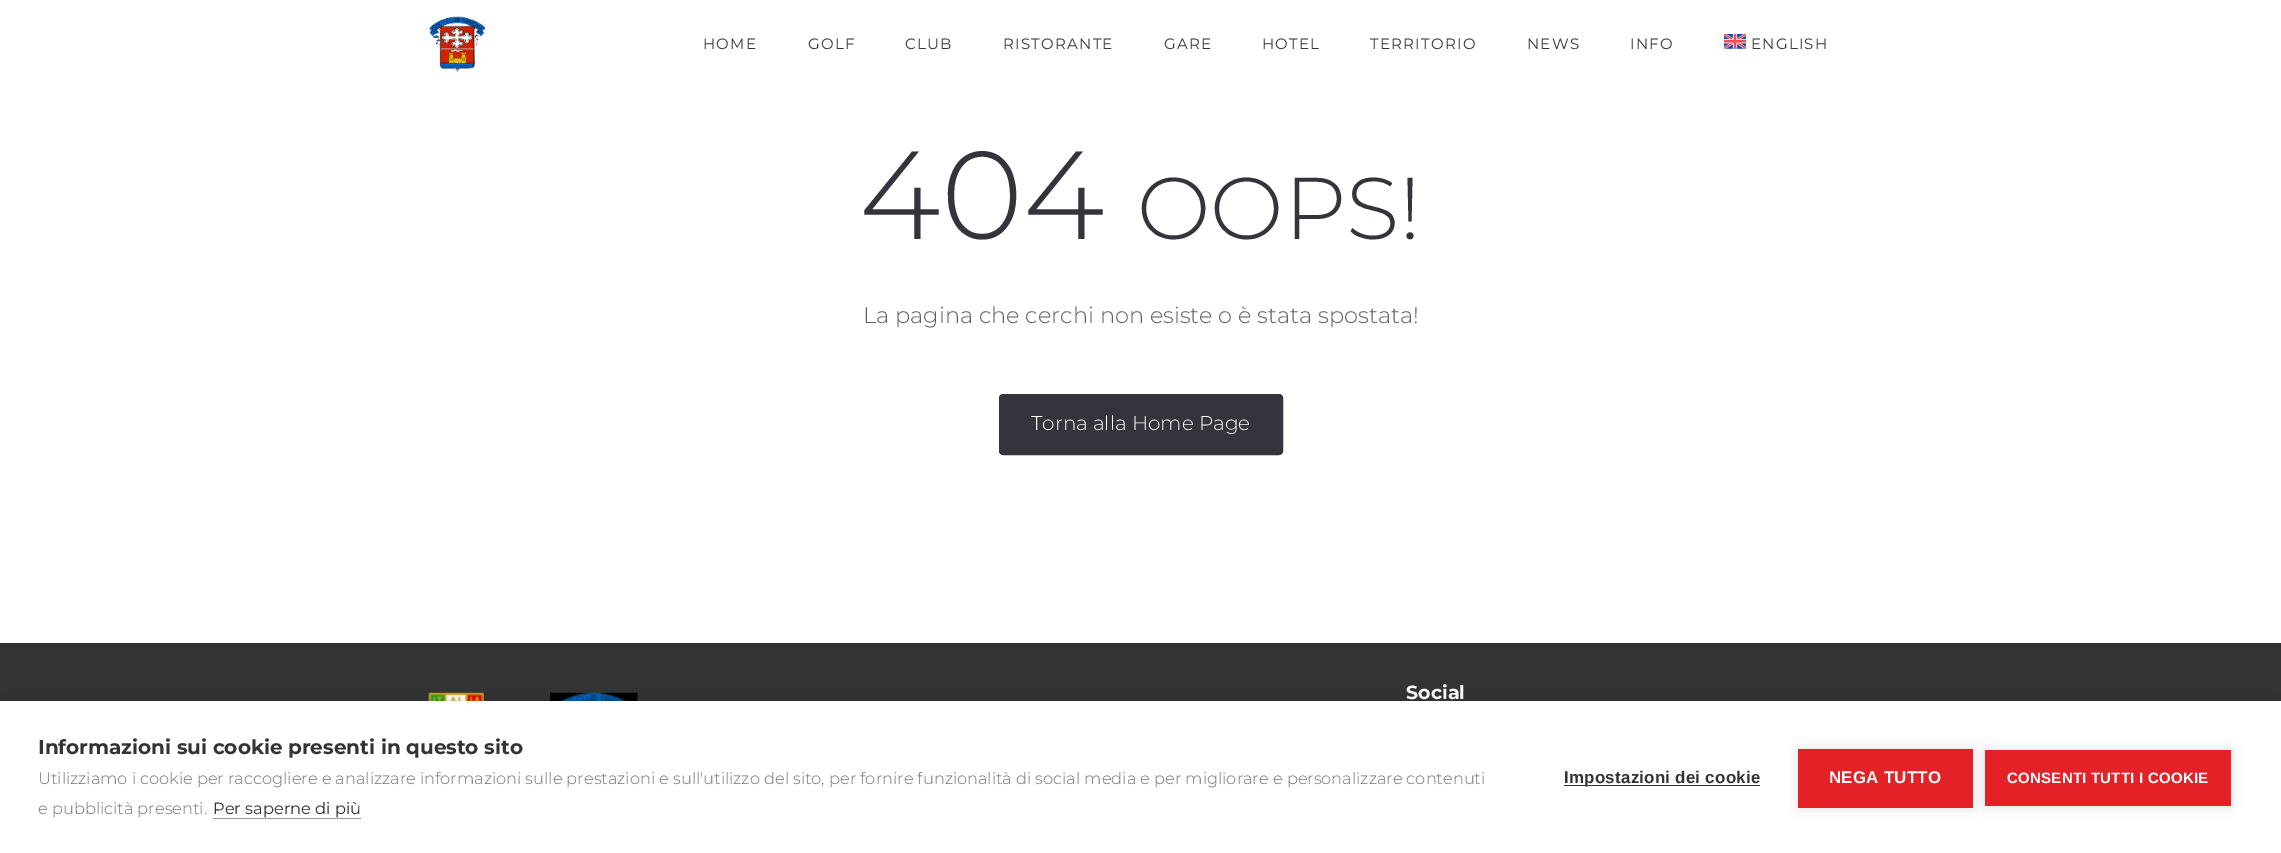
%!PS
<< /PageSize [2281 853] /PageUsesTransparency true >> setpagedevice
/m/moveto load def
/f/fill load def
/s/stroke load def
/q/gsave load def
/Q_/grestore load def
/C { dup -16 bitshift 255 div exch dup -8 bitshift 255 and 255 div exch 255 and 255 div setrgbcolor } def
/F { [ exch dup neg 0 0 3 -1 roll 0 0 ] selectfont } def
/T { moveto show } def
/R { rectfill } def
/A { dup .setfillconstantalpha .setstrokeconstantalpha } def
/Q { 5 dict begin { /r /h /w /y /x } { exch def } forall
  x r add y moveto x w add y 2 copy h add r arct x w add y h add x 1 index r arct
  x y h add x y r arct x y 2 copy exch w add exch r arct closepath end } def
/S { 12 dict begin { /a /b /q /h /w /y /x } { exch def } forall gsave /was 0 def
  9 -2 -9 { dup b mul 4 div /e exch def 1 sub .425 mul 2.718 exch exp 1 add a .99 .min exch div /now exch def
    1 1 now sub 1 was sub div sub A /was now def
    w h .min e 2 mul add 0 gt { x e sub y e sub w e 2 mul add h e 2 mul add
      q e add b .6 mul add w h .min 2 div e add .min 0 .max Q fill } if } for grestore end } def
/I { 5 dict begin { /h /w /y /x /name } { exch def } forall
  gsave x y translate w h scale
  w h 8 [w 0 0 h 0 0] name (r) file false 3 colorimage grestore end } def
0 .pushpdf14devicefilter
0 853 translate 1 -1 scale
4 setmiterlimit
16#FFFFFF C
0 0 2281 853 R
(1.rgb) 429 16 57 56 I
/Montserrat-Regular 15 F
16#34343C C
703 49 m 1.25 0 (HOME) ashow
808 49 m 1.25 0 (GOLF) ashow
905 49 m 1.25 0 (CLUB) ashow
1003 49 m 1.25 0 (RISTORANTE) ashow
1164 49 m 1.25 0 (GARE) ashow
1262 49 m 1.25 0 (HOTEL) ashow
1370 49 m 1.25 0 (TERRITORIO) ashow
1527 49 m 1.25 0 (NEWS) ashow
1630 49 m 1.25 0 (INFO) ashow
(2.rgb) 1724 34 22 15 I
1751 49 m 1.25 0 (ENGLISH) ashow
/Montserrat-Light 125 F
(404) 859 239 T
/Montserrat-Light 87.5 F
(OOPS!) 1137 239 T
/Montserrat-Light 22.5 F
16#606060 C
(La pagina che cerchi non esiste o è stata spostata!) 863 323 T
16#34343C C
999.5 394.5 283 60 3.5 Q q f Q_
s
/Montserrat-Light 20 F
16#FFFFFF C
(Torna alla Home Page) 1031 430 T
16#333333 C
0 643 2281 58 R
(3.rgb) 428 692 56 9 I
(4.rgb) 550 692 88 9 I
/Montserrat-Bold 19 F
16#FFFFFF C
(Social) 1406 699 T
16#000000 C
0 701 2281 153 0 12.5 .1 S
16#FFFFFF C
0 701 2281 152 R
/Montserrat-Bold 20 F
16#333333 C
(Informazioni sui cookie presenti in questo sito) 38 754 T
/Montserrat-Light 16.25 F
16#707070 C
(Utilizziamo i cookie per raccogliere e analizzare informazioni sulle prestazioni e sull'utilizzo del sito, per fornire funzionalità di social media e per migliorare e personalizzare contenuti) 38 784 T
(e pubblicità presenti.) 38 814 T
/Montserrat-Regular 16.25 F
16#333333 C
(Per saperne di più) 213 814 T
16#999999 C
213 818 148 1 R
16#333333 C
1564 785 196 1 R
/LiberationSans-Bold 16.9 F
1564 783 m .25 0 (Impostazioni dei cookie) ashow
16#000000 C
1798 749 175 59 0 6 .12 S
16#E42127 C
1798 749 175 59 R
16#FFFFFF C
1829 783 m .25 0 (NEGA TUTTO) ashow
16#000000 C
1985 750 246 56 0 6 .12 S
16#E42127 C
1985 750 246 56 R
/LiberationSans-Bold 15 F
16#FFFFFF C
2007 783 m .25 0 (CONSENTI TUTTI I COOKIE) ashow
.poppdf14devicefilter showpage
